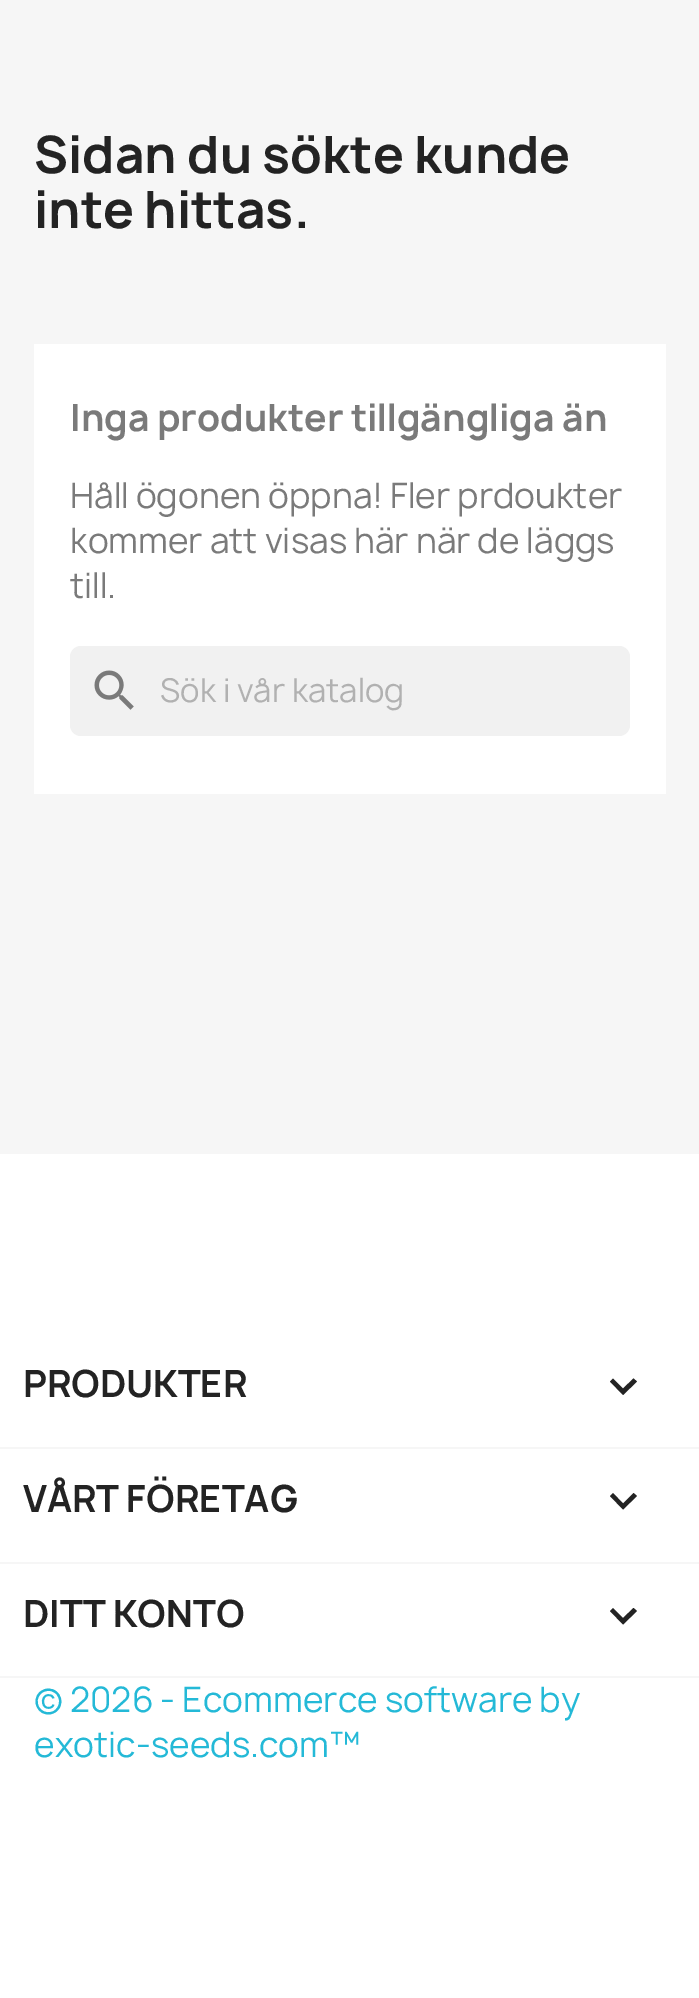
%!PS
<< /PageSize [699 1998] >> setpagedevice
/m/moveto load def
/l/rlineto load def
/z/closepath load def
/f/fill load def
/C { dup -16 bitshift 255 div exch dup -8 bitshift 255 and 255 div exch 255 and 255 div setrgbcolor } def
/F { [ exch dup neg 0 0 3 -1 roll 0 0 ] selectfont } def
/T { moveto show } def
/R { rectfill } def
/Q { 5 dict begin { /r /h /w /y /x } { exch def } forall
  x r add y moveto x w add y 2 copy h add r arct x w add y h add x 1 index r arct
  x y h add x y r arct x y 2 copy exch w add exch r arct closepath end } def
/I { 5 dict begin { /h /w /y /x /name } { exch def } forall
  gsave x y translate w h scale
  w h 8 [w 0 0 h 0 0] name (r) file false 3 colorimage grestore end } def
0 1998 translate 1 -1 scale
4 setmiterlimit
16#FFFFFF C
0 0 699 1998 R
16#F6F6F6 C
0 0 699 1154 R
/Manrope-Bold 49.5 F
16#232323 C
(Sidan du sökte kunde) 34 173 T
(inte hittas.) 34 228 T
16#FFFFFF C
34 344 632 450 R
/Manrope-Bold 36 F
16#7A7A7A C
(Inga produkter tillgängliga än) 70 431 T
/Manrope-Regular 33.75 F
(Håll ögonen öppna! Fler prdoukter) 70 508 T
(kommer att visas här när de läggs) 70 553 T
(till.) 70 598 T
16#F1F1F1 C
70 646 560 90 11 Q f
(1.rgb) 94 670 40 40 I
/Manrope-Regular 31.5 F
16#B1B1B1 C
(Sök i vår katalog) 160 702 T
16#F6F6F6 C
0 1447 699 2 R
/Manrope-Bold 36 F
16#232323 C
(PRODUKTER) 23 1397 T
613 1378.5 m 10 10 l 10.5 -10 l 3.5 3 l -14 13.5 l -13 -13.5 l z f
16#F6F6F6 C
0 1562 699 2 R
16#232323 C
(VÅRT FÖRETAG) 23 1512 T
613 1493 m 10 10.5 l 10.5 -10.5 l 3.5 3 l -14 13.5 l -13 -13.5 l z f
16#F6F6F6 C
0 1676 699 2 R
16#232323 C
(DITT KONTO) 23 1627 T
613 1608 m 10 10 l 10.5 -10 l 3.5 3 l -14 13.5 l -13 -13.5 l z f
/Manrope-Regular 33.75 F
16#24B9D7 C
(© 2026 - Ecommerce software by) 34 1712 T
(exotic-seeds.com™) 34 1757 T
showpage
